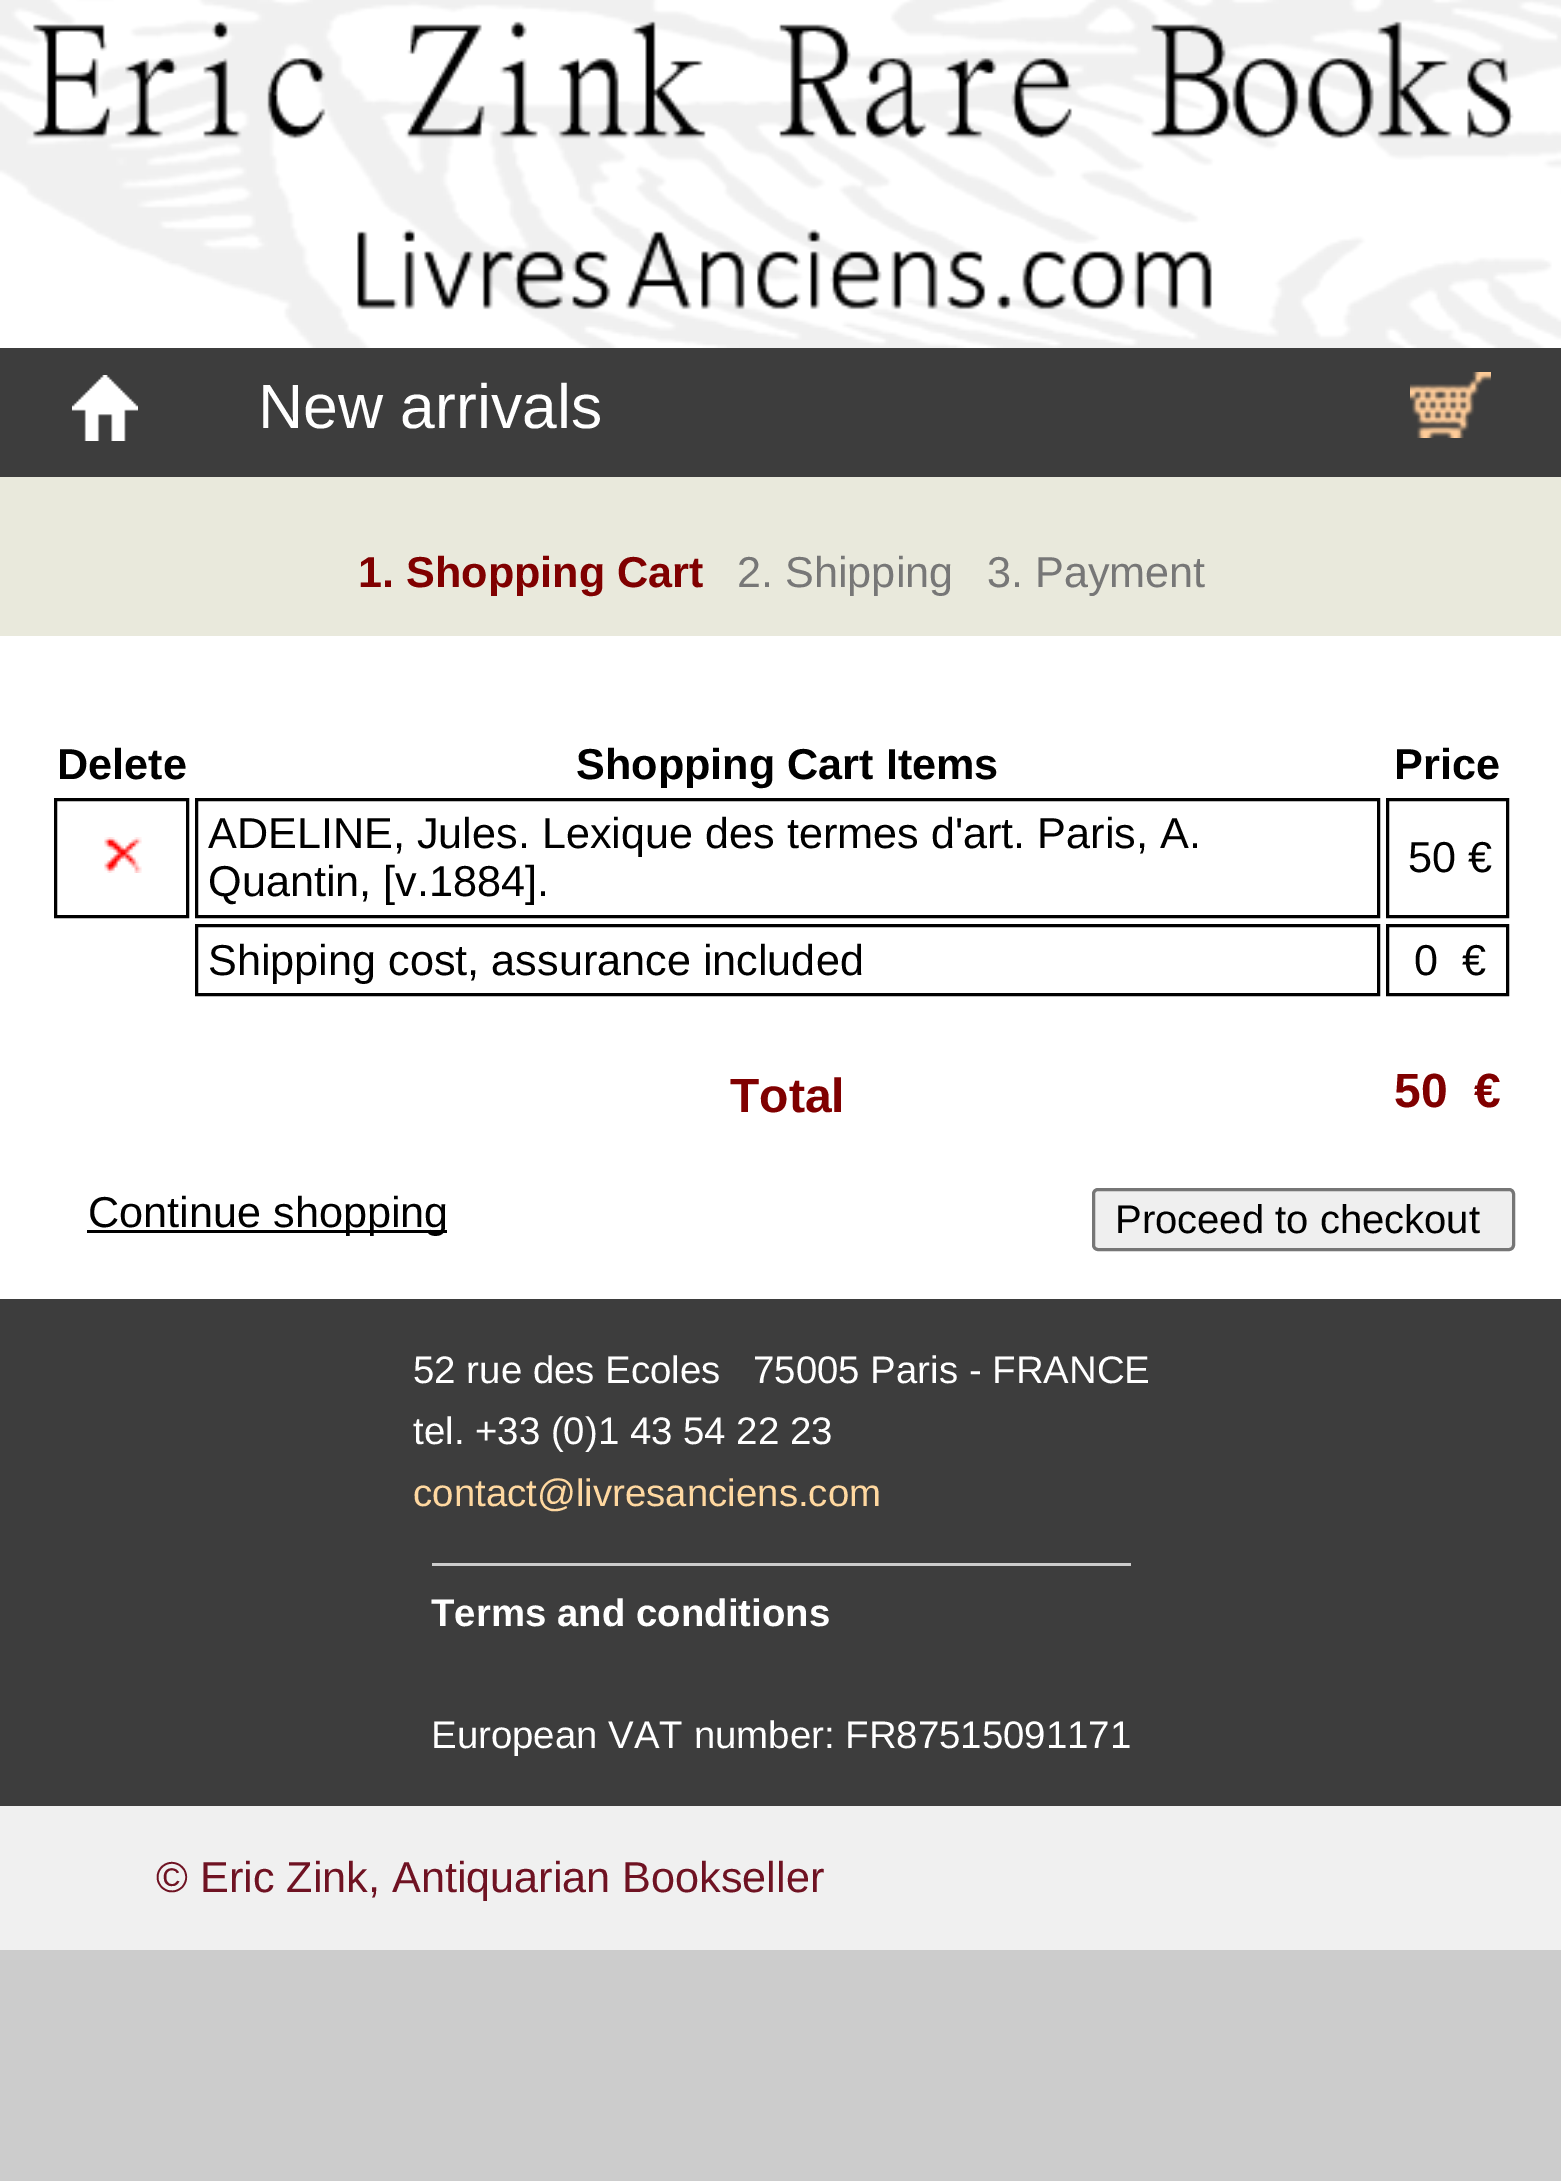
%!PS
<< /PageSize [1561 2181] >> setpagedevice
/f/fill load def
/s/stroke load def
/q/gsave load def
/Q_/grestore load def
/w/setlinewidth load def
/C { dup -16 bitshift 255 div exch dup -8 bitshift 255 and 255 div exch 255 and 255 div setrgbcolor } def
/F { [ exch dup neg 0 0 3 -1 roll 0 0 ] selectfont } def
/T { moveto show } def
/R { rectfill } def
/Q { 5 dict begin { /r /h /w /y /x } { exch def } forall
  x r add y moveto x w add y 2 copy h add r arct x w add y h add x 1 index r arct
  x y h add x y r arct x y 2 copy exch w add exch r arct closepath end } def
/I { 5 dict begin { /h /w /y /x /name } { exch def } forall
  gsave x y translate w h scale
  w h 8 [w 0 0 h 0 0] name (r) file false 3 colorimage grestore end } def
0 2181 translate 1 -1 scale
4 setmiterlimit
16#CCCCCC C
0 0 1561 2181 R
16#FFFFFF C
0 0 1561 348 R
(1.rgb) 0 0 1561 348 I
(2.rgb) 32 21 1482 289 I
16#3D3D3D C
0 348 1561 129 R
(3.rgb) 72 375 66 66 I
/LiberationSans-Regular 62.5 F
16#FFFFFF C
(New arrivals) 258 428 T
(4.rgb) 1410 372 81 66 I
16#E9E9DC C
0 477 1561 159 R
/LiberationSans-Bold 43.2 F
16#800000 C
(1. Shopping Cart) 358 587 T
/LiberationSans-Regular 43.2 F
16#777777 C
(2. Shipping) 737 587 T
(3. Payment) 987 587 T
16#FFFFFF C
0 636 1561 663 R
/LiberationSans-Bold 43.2 F
16#000000 C
(Delete) 57 779 T
(Shopping Cart Items) 576 779 T
(Price) 1394 779 T
3 w
55.5 799.5 132 117 rectstroke
(5.rgb) 104 837 38 36 I
196.5 799.5 1182 117 rectstroke
/LiberationSans-Regular 43.2 F
(ADELINE, Jules. Lexique des termes d'art. Paris, A.) 208 848 T
(Quantin, [v.1884].) 208 896 T
1387.5 799.5 120 117 rectstroke
(50 €) 1408 872 T
196.5 925.5 1182 69 rectstroke
(Shipping cost, assurance included) 208 975 T
1387.5 925.5 120 69 rectstroke
(0  €) 1414 975 T
/LiberationSans-Bold 48 F
16#800000 C
(Total) 730 1112 T
(50  €) 1394 1107 T
16#000000 C
87 1230 360 3 R
/LiberationSans-Regular 43.2 F
(Continue shopping) 88 1227 T
16#EFEFEF C
1093.5 1189.5 420 60 4.5 Q q f Q_
16#767676 C
s
/LiberationSans-Regular 40 F
16#000000 C
(Proceed to checkout) 1115 1233 T
16#3D3D3D C
0 1299 1561 507 R
/LiberationSans-Regular 38.4 F
16#FFFFFF C
(52 rue des Ecoles) 413 1383 T
(75005 Paris - FRANCE) 753 1383 T
(tel. +33 \(0\)1 43 54 22 23) 413 1444 T
16#FFD8A0 C
(contact@livresanciens.com) 413 1506 T
16#CCCCCC C
432 1563 699 3 R
/LiberationSans-Bold 38.4 F
16#FFFFFF C
(Terms and conditions) 431 1626 T
/LiberationSans-Regular 38.4 F
(European VAT number: FR87515091171) 431 1748 T
16#F0F0F0 C
0 1806 1561 144 R
/LiberationSans-Regular 43.2 F
16#6F1222 C
(© Eric Zink, Antiquarian Bookseller) 156 1892 T
showpage
